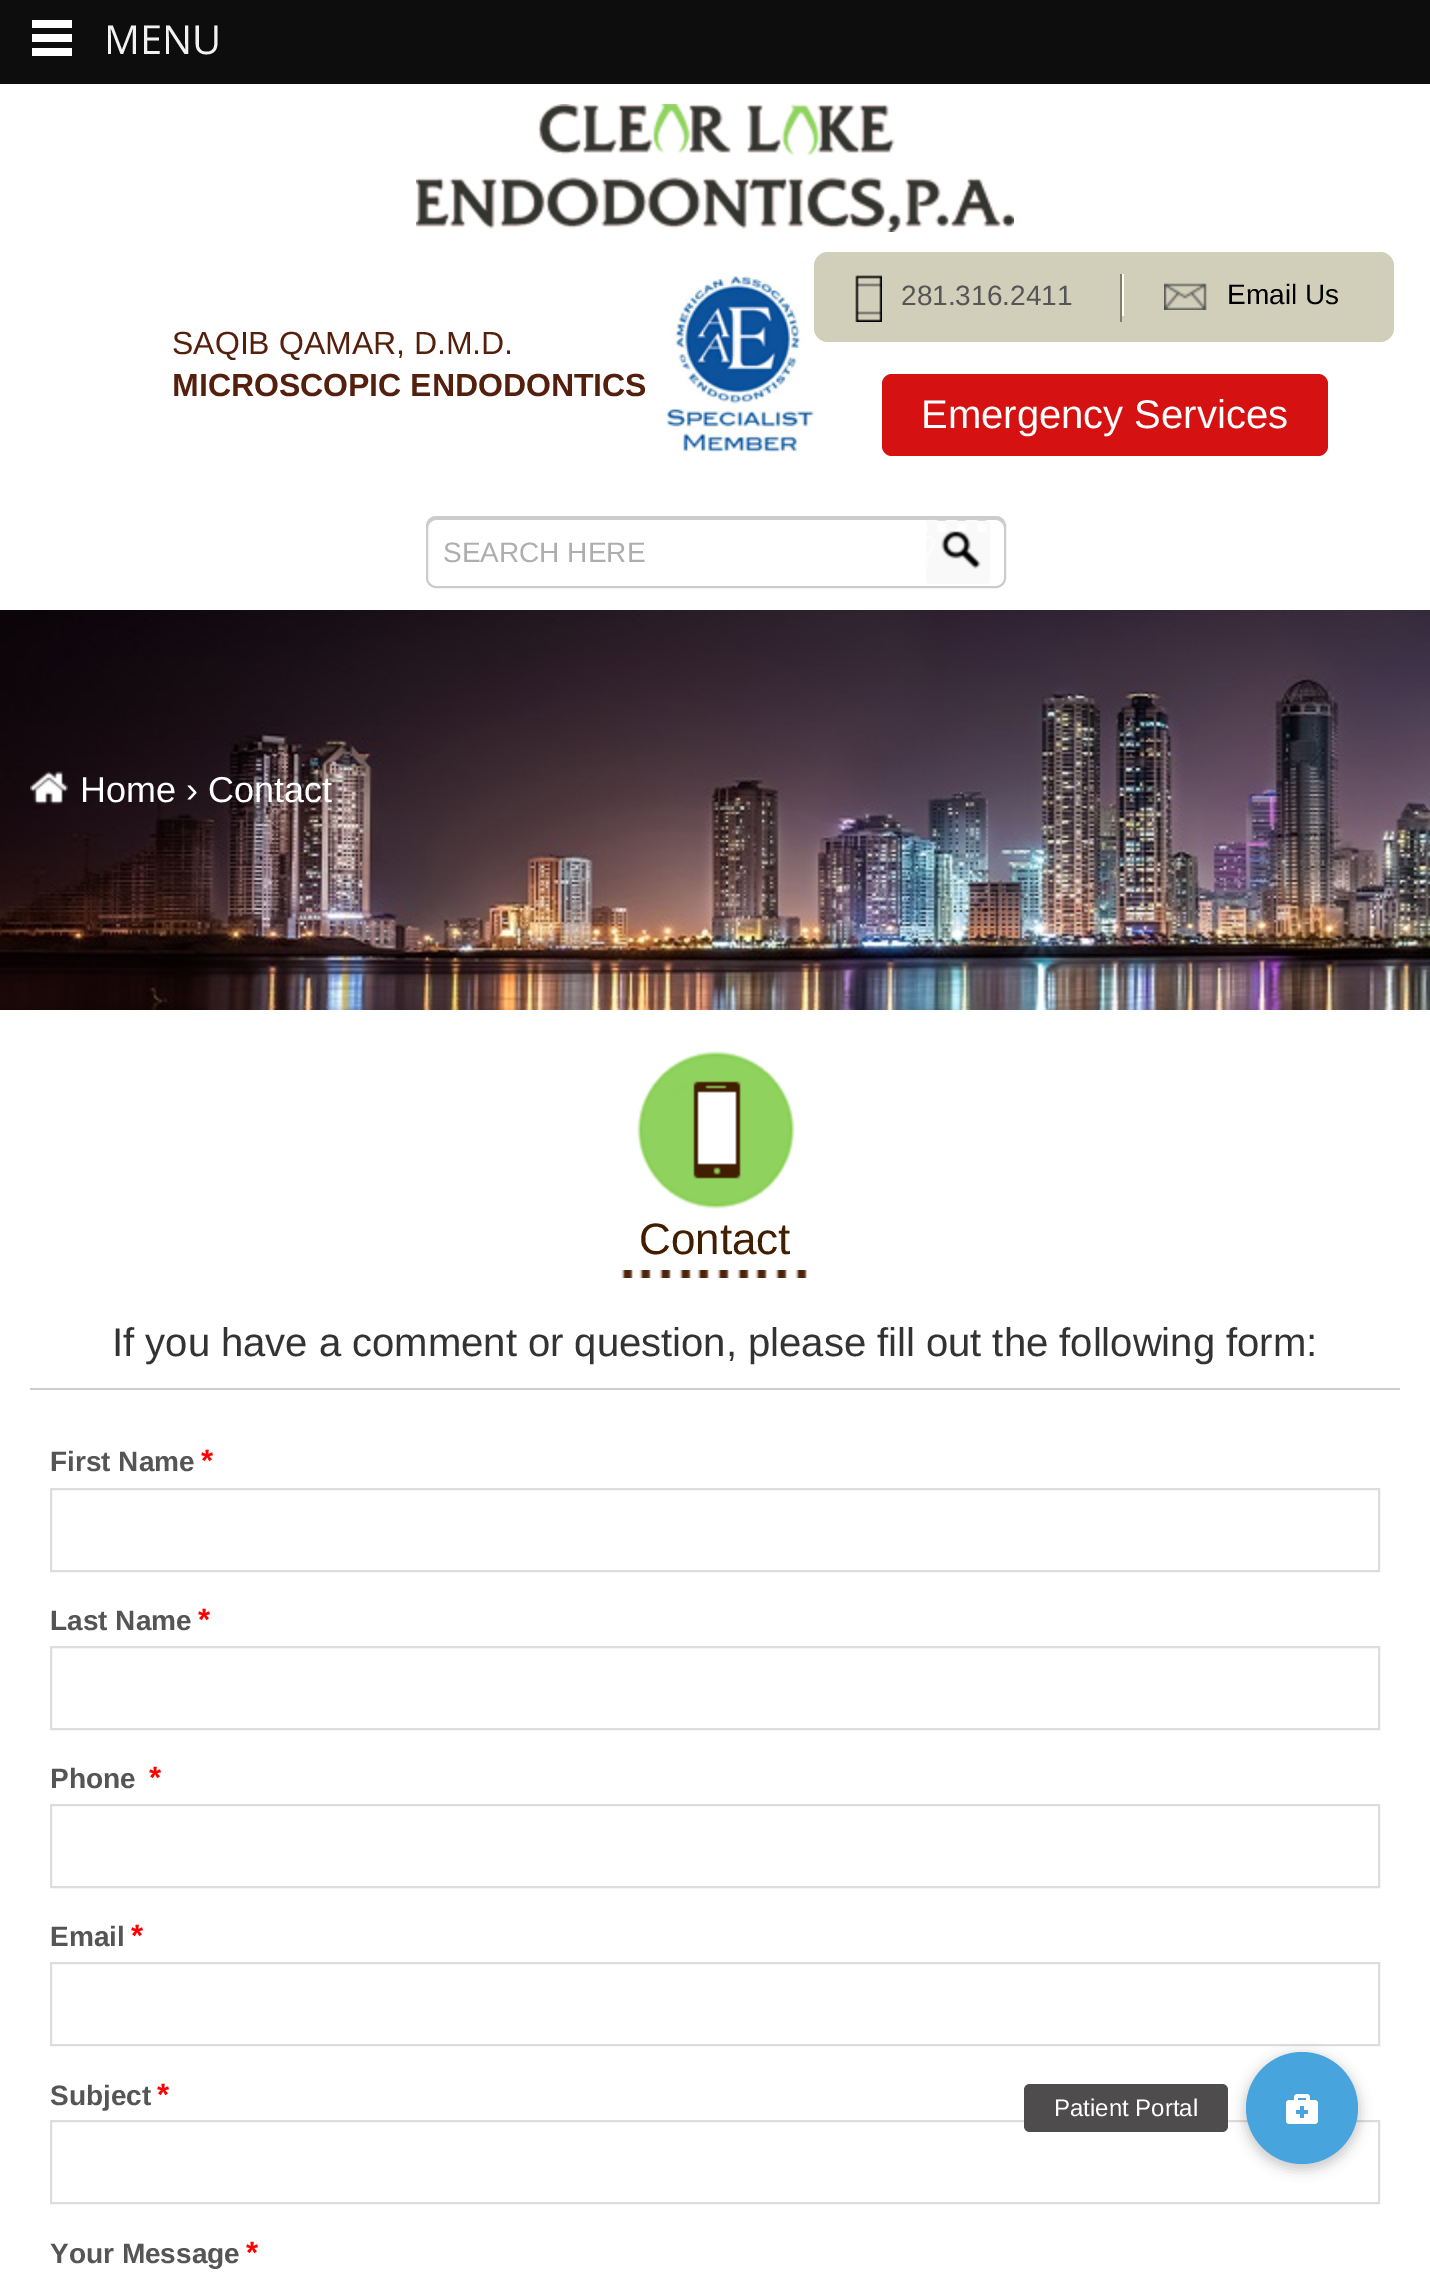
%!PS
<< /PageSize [1430 2278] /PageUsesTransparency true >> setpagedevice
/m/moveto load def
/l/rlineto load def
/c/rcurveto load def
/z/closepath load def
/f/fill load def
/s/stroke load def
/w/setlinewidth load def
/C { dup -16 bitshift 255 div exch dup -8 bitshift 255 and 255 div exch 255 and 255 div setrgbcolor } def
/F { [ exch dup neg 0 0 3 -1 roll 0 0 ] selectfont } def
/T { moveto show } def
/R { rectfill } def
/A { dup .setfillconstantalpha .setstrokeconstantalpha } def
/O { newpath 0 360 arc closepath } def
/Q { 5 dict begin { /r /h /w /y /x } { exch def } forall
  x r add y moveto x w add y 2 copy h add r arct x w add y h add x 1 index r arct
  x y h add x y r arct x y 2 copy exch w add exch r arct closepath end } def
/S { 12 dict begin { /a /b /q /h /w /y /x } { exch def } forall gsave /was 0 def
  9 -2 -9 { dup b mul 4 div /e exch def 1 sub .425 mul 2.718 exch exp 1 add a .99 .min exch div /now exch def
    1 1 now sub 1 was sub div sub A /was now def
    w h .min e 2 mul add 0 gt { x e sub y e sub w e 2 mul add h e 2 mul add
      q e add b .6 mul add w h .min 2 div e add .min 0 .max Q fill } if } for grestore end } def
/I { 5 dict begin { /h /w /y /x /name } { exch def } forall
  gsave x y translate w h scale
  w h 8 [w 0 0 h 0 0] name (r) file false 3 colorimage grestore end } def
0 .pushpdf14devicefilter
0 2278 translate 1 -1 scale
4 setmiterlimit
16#FFFFFF C
0 0 1430 2278 R
16#0D0D0D C
0 0 1430 84 R
16#FFFFFF C
32 20 40 8 R
32 34 40 8 R
32 48 40 8 R
/OpenSans-Regular 40 F
16#F2F2F2 C
(MENU) 104 54 T
(1.rgb) 416 104 598 128 I
/LiberationSans-Regular 32 F
16#541F0C C
(SAQIB QAMAR, D.M.D.) 172 354 T
/LiberationSans-Bold 32 F
(MICROSCOPIC ENDODONTICS) 172 396 T
(2.rgb) 666 276 148 176 I
16#D1CFBA C
814 252 580 90 14 Q f
16#7F7D6B C
1120 274 2 48 R
(3.rgb) 855 275 27 47 I
/LiberationSans-Regular 28 F
16#555555 C
(281.316.2411) 901 305 T
16#FFFEF3 C
1122 274 2 42 R
(4.rgb) 1164 283 43 27 I
16#000000 C
(Email Us) 1227 304 T
16#D51111 C
882 374 446 82 10 Q f
/LiberationSans-Regular 40 F
16#FFFFFF C
(Emergency Services) 921 428 T
16#CCCCCC C
436 520 m 560 0 l 4 0 8 4 8 8 c 0 -5 -2 -10 -8 -10 c -560 0 l -6 0 -8 5 -8 10 c 0 -4 4 -8 8 -8 c z f
2 w
427 517 578 70 9 Q s
/LiberationSans-Regular 28 F
16#AEAEAE C
(SEARCH HERE) 443 562 T
16#F9F9F9 C
926 520 64 64 4 Q f
(5.rgb) 926 520 61 49 I
0.3 A
16#FFFFFF C
930 522 m 56 0 l 2 0 4 2 4 4 c 0 -8 -6 -6 -13 -6 c -38 0 l -7 0 -13 -2 -13 6 c 0 -2 2 -4 4 -4 c z f
1 A
(6.rgb) 0 610 1430 400 I
(7.rgb) 30 771 38 34 I
/LiberationSans-Regular 36 F
(Home › Contact) 80 802 T
(8.rgb) 637 1051 158 158 I
/LiberationSans-Regular 44 F
16#421E01 C
(Contact) 639 1254 T
(9.rgb) 621 1270 186 8 I
16#CCCCCC C
30 1388 1370 2 R
/LiberationSans-Regular 40 F
16#333333 C
(If you have a comment or question, please fill out the following form:) 112 1356 T
/LiberationSans-Bold 28 F
16#555555 C
(First Name) 50 1471 T
/LiberationSans-Bold 31 F
16#FF0000 C
(*) 201 1471 T
16#DDDDDD C
51 1489 1328 82 rectstroke
/LiberationSans-Bold 28 F
16#555555 C
(Last Name) 50 1630 T
/LiberationSans-Bold 31 F
16#FF0000 C
(*) 198 1630 T
16#DDDDDD C
51 1647 1328 82 rectstroke
/LiberationSans-Bold 28 F
16#555555 C
(Phone) 50 1788 T
/LiberationSans-Bold 31 F
16#FF0000 C
(*) 149 1788 T
16#DDDDDD C
51 1805 1328 82 rectstroke
/LiberationSans-Bold 28 F
16#555555 C
(Email) 50 1946 T
/LiberationSans-Bold 31 F
16#FF0000 C
(*) 131 1946 T
16#DDDDDD C
51 1963 1328 82 rectstroke
/LiberationSans-Bold 28 F
16#555555 C
(Subject) 50 2105 T
/LiberationSans-Bold 31 F
16#FF0000 C
(*) 157 2105 T
16#DDDDDD C
51 2121 1328 82 rectstroke
/LiberationSans-Bold 28 F
16#555555 C
(Your Message) 50 2263 T
/LiberationSans-Bold 31 F
16#FF0000 C
(*) 246 2263 T
16#000000 C
1244 2054 116 116 58 6 .2 S
16#48A4DC C
1302 2108 56 O f
16#4E4C4C C
1024 2084 204 48 6 Q f
/LiberationSans-Regular 24 F
16#FFFFFF C
(Patient Portal) 1054 2116 T
(10.rgb) 1286 2094 32 30 I
.poppdf14devicefilter showpage
